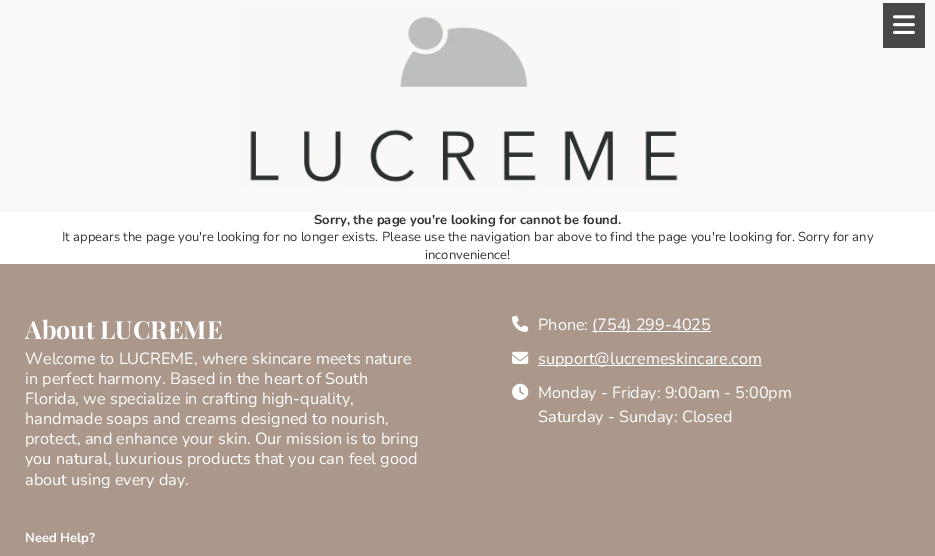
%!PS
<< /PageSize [935 556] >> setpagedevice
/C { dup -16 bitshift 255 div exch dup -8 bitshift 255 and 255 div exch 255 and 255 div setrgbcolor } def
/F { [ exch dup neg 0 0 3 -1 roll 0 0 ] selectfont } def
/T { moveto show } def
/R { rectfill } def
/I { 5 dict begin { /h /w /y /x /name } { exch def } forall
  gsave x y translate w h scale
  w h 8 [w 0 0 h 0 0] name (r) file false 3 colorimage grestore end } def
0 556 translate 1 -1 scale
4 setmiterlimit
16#FFFFFF C
0 0 935 556 R
16#F9F9F9 C
0 0 935 212 R
(1.rgb) 239 7 441 180 I
16#474747 C
883 3 42 45 R
(2.rgb) 893 15 22 19 I
/Nunito-Bold 13 F
16#333333 C
(Sorry, the page you're looking for cannot be found.) 314 224 T
/Nunito-Regular 13 F
(It appears the page you're looking for no longer exists. Please use the navigation bar above to find the page you're looking for. Sorry for any) 62 241 T
(inconvenience!) 425 259 T
16#AB988B C
0 264 935 292 R
/PlayfairDisplay-Bold 25 F
16#FFFFFF C
(About LUCREME) 25 339 T
/Nunito-Regular 16.25 F
(Welcome to LUCREME, where skincare meets nature) 25 364 T
(in perfect harmony. Based in the heart of South) 25 384 T
(Florida, we specialize in crafting high-quality,) 25 404 T
(handmade soaps and creams designed to nourish,) 25 424 T
(protect, and enhance your skin. Our mission is to bring) 25 444 T
(you natural, luxurious products that you can feel good) 25 464 T
(about using every day.) 25 485 T
/Nunito-Bold 13 F
(Need Help?) 25 542 T
(3.rgb) 512 315 17 17 I
/Nunito-Regular 16.25 F
(Phone:) 538 330 T
592 331 119 1 R
(\(754\) 299-4025) 592 330 T
(4.rgb) 512 351 17 13 I
538 365 224 1 R
(support@lucremeskincare.com) 538 364 T
(5.rgb) 512 383 17 17 I
(Monday - Friday: 9:00am - 5:00pm) 538 398 T
(Saturday - Sunday: Closed) 538 422 T
showpage
